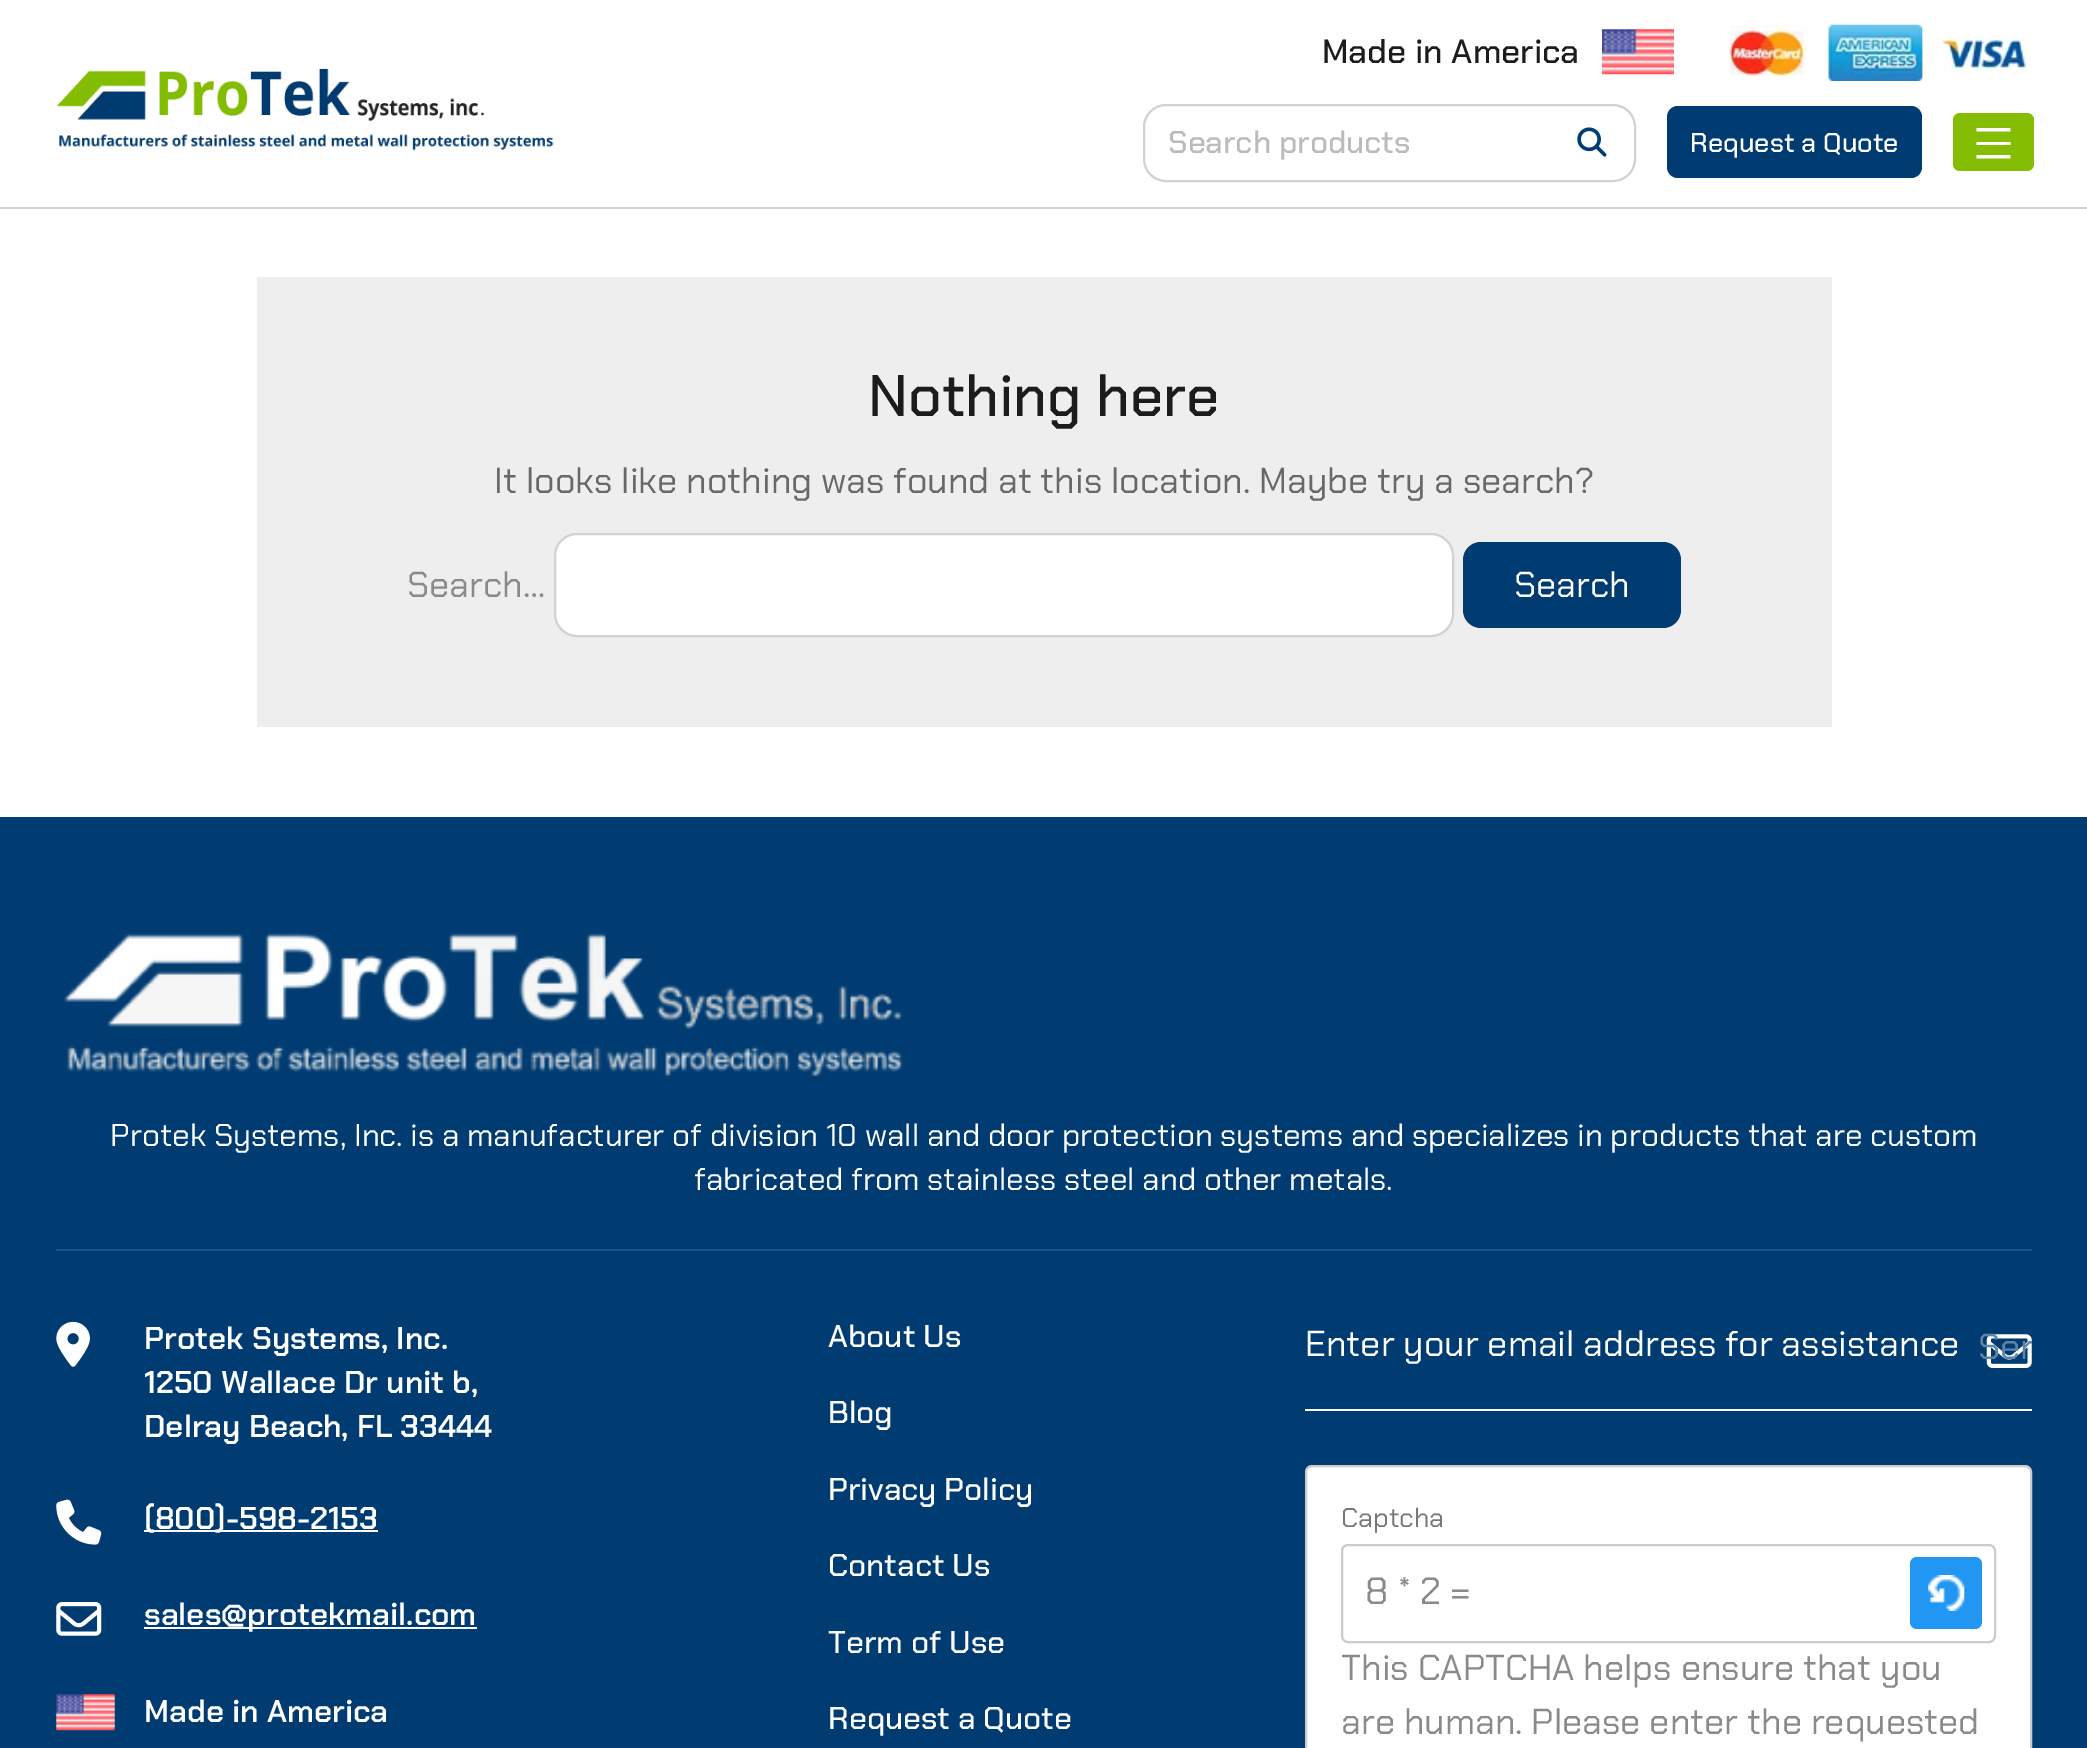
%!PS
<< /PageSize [2087 1748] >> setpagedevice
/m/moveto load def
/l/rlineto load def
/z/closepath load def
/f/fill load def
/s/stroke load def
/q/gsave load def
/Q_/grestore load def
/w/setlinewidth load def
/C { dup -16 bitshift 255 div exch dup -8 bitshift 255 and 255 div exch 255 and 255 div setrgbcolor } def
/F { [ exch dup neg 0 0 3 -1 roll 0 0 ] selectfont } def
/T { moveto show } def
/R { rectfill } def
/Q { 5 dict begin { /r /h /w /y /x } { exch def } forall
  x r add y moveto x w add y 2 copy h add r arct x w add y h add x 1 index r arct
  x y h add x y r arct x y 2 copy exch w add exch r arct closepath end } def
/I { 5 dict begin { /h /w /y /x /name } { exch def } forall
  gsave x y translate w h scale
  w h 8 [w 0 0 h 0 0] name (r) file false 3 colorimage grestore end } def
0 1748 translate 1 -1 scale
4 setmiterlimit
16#FFFFFF C
0 0 2087 1748 R
16#D2D2D2 C
0 207 2087 2 R
(1.rgb) 56 68 498 83 I
/ChakraPetch-Medium 33.75 F
16#1C1C1C C
(Made in America) 1322 63 T
(2.rgb) 1602 29 72 46 I
(3.rgb) 1729 24 302 57 I
16#D2D2D2 C
2 w
1144 105 491 76 22 Q s
/ChakraPetch-Medium 31.5 F
16#BBBBBB C
(Search products) 1168 153 T
(4.rgb) 1577 127 30 30 I
16#003C71 C
1667 106 255 72 11 Q f
/ChakraPetch-Medium 27 F
16#FFFFFF C
(Request a Quote) 1690 152 T
16#84BD01 C
1953 113 81 58 7 Q f
16#FFFFFF C
1976.5 128 m 34 0 l 0 3.5 l -34 0 l z 1976.5 142 m 34 0 l 0 3 l -34 0 l z 2010.5 155 m -34 0 l 0 3.5 l 34 0 l z eofill
16#EEEEEE C
257 277 1575 450 R
/ChakraPetch-Medium 58.5 F
16#1C1C1C C
(Nothing here) 868 416 T
/ChakraPetch-Regular 36 F
16#686868 C
(It looks like nothing was found at this location. Maybe try a search?) 494 493 T
16#8A8A8A C
(Search…) 407 597 T
16#FFFFFF C
555 534 898 102 22 Q q f Q_
16#D2D2D2 C
s
16#003C71 C
1463 542 218 86 18 Q f
16#FFFFFF C
(Search) 1514 597 T
16#003C71 C
0 817 2087 931 R
16#125591 C
56 1249 1976 2 R
(5.rgb) 64 933 839 144 I
/ChakraPetch-Regular 31.5 F
16#FFFFFF C
(Protek Systems, Inc. is a manufacturer of division 10 wall and door protection systems and specializes in products that are custom) 110 1146 T
(fabricated from stainless steel and other metals.) 694 1190 T
(6.rgb) 56 1321 34 46 I
/ChakraPetch-SemiBold 31.5 F
(Protek Systems, Inc.) 144 1349 T
(1250 Wallace Dr unit b,) 144 1393 T
(Delray Beach, FL 33444) 144 1437 T
(7.rgb) 56 1499 46 46 I
144 1530 234 2 R
(\(800\)-598-2153) 144 1529 T
(8.rgb) 56 1602 46 34 I
144 1627 333 2 R
(sales@protekmail.com) 144 1625 T
(9.rgb) 56 1694 59 37 I
(Made in America) 144 1722 T
/ChakraPetch-Medium 31.5 F
(About Us) 828 1347 T
(Blog) 828 1423 T
(Privacy Policy) 828 1500 T
(Contact Us) 828 1576 T
(Term of Use) 828 1653 T
(Request a Quote) 828 1729 T
1305 1409 727 2 R
/ChakraPetch-Regular 36 F
(Enter your email address for assistance) 1305 1356 T
(10.rgb) 1986 1334 46 34 I
q
1978 1323 54 52 rectclip
16#5E84A6 C
(Sen) 1978 1359 T
Q_
1306 1466 725 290 6 Q q f Q_
16#CCCCCC C
s
/ChakraPetch-Regular 27 F
16#777777 C
(Captcha) 1341 1527 T
16#CCCCCC C
1342 1545 653 97 6 Q s
/ChakraPetch-Regular 38 F
16#8A8A8A C
(8 * 2 =) 1365 1604 T
16#2196F3 C
1910 1557 72 72 7 Q f
(11.rgb) 1928 1575 37 36 I
/ChakraPetch-Regular 36 F
16#8A8A8A C
(This CAPTCHA helps ensure that you) 1341 1680 T
(are human. Please enter the requested) 1341 1734 T
showpage
